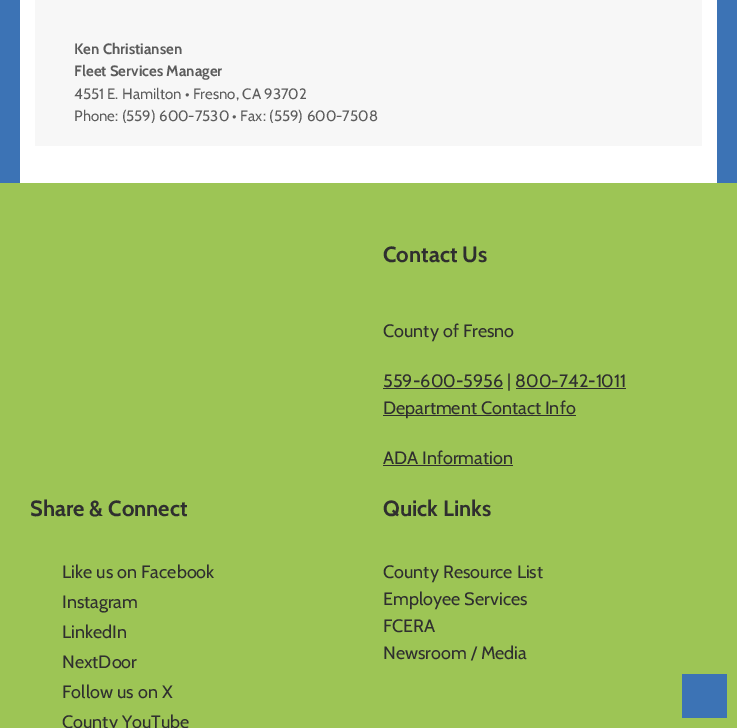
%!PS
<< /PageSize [737 728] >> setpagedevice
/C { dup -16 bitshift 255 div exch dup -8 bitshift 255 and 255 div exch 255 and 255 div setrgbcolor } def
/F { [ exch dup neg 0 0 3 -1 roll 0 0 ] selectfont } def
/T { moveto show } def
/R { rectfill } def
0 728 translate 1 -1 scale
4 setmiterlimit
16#3C73B5 C
0 0 737 728 R
16#FFFFFF C
20 0 697 183 R
16#F7F7F7 C
35 0 667 146 R
/Cabin-Bold 15 F
16#5C5C5C C
(Ken Christiansen) 74 54 T
(Fleet Services Manager) 74 76 T
/Cabin-Regular 15 F
(4551 E. Hamilton • Fresno, CA 93702) 74 99 T
(Phone: \(559\) 600-7530 • Fax: \(559\) 600-7508) 74 121 T
16#9DC555 C
0 183 737 545 R
16#3C73B5 C
682 674 45 44 R
/Cabin-Bold 22 F
16#2F2F2F C
(Contact Us) 383 262 T
/Cabin-Regular 18 F
(County of Fresno) 383 337 T
383 388 120 1 R
(559-600-5956 | 800-742-1011) 383 387 T
516 388 110 1 R
383 415 193 1 R
(Department Contact Info) 383 414 T
(ADA Information) 383 464 T
383 465 130 1 R
/Cabin-Bold 22 F
(Share & Connect) 30 516 T
/Cabin-Regular 18 F
(Like us on Facebook) 62 578 T
(Instagram) 62 608 T
(LinkedIn) 62 638 T
(NextDoor) 62 668 T
(Follow us on X) 62 698 T
(County YouTube) 62 728 T
/Cabin-Bold 22 F
(Quick Links) 383 516 T
/Cabin-Regular 18 F
(County Resource List) 383 578 T
(Employee Services) 383 605 T
(FCERA) 383 632 T
(Newsroom / Media) 383 659 T
showpage
